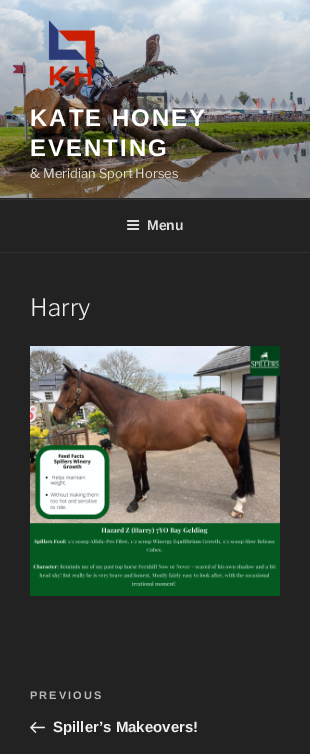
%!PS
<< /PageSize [310 754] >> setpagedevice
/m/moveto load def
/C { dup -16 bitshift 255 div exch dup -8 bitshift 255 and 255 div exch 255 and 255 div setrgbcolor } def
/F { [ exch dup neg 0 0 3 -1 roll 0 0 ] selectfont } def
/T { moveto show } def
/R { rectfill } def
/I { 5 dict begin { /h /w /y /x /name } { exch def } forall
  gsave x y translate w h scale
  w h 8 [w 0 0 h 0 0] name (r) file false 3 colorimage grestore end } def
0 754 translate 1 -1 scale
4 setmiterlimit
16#222222 C
0 0 310 754 R
16#262626 C
0 198 310 1 R
(1.rgb) 0 0 310 198 I
(2.rgb) 48 20 48 66 I
/LiberationSans-Bold 24 F
16#FFFFFF C
30 126 m 2 0 (KATE HONEY) ashow
30 156 m 2 0 (EVENTING) ashow
/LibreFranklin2-Thin 13 F
16#DEDAD5 C
(& Meridian Sport Horses) 30 178 T
16#333333 C
0 199 310 1 R
0 252 310 1 R
(3.rgb) 127 220 13 10 I
/LiberationSans-Bold 14 F
16#DDDDDD C
(Menu) 147 230 T
/LibreFranklin-Thin 24 F
16#EEEEEE C
(Harry) 30 316 T
(4.rgb) 30 346 250 250 I
/LiberationSans-Bold 11 F
16#BBBBBB C
30 699 m 2 0 (PREVIOUS) ashow
(5.rgb) 30 722 15 11 I
/LiberationSans-Bold 15 F
16#EEEEEE C
(Spiller’s Makeovers!) 53 732 T
showpage
